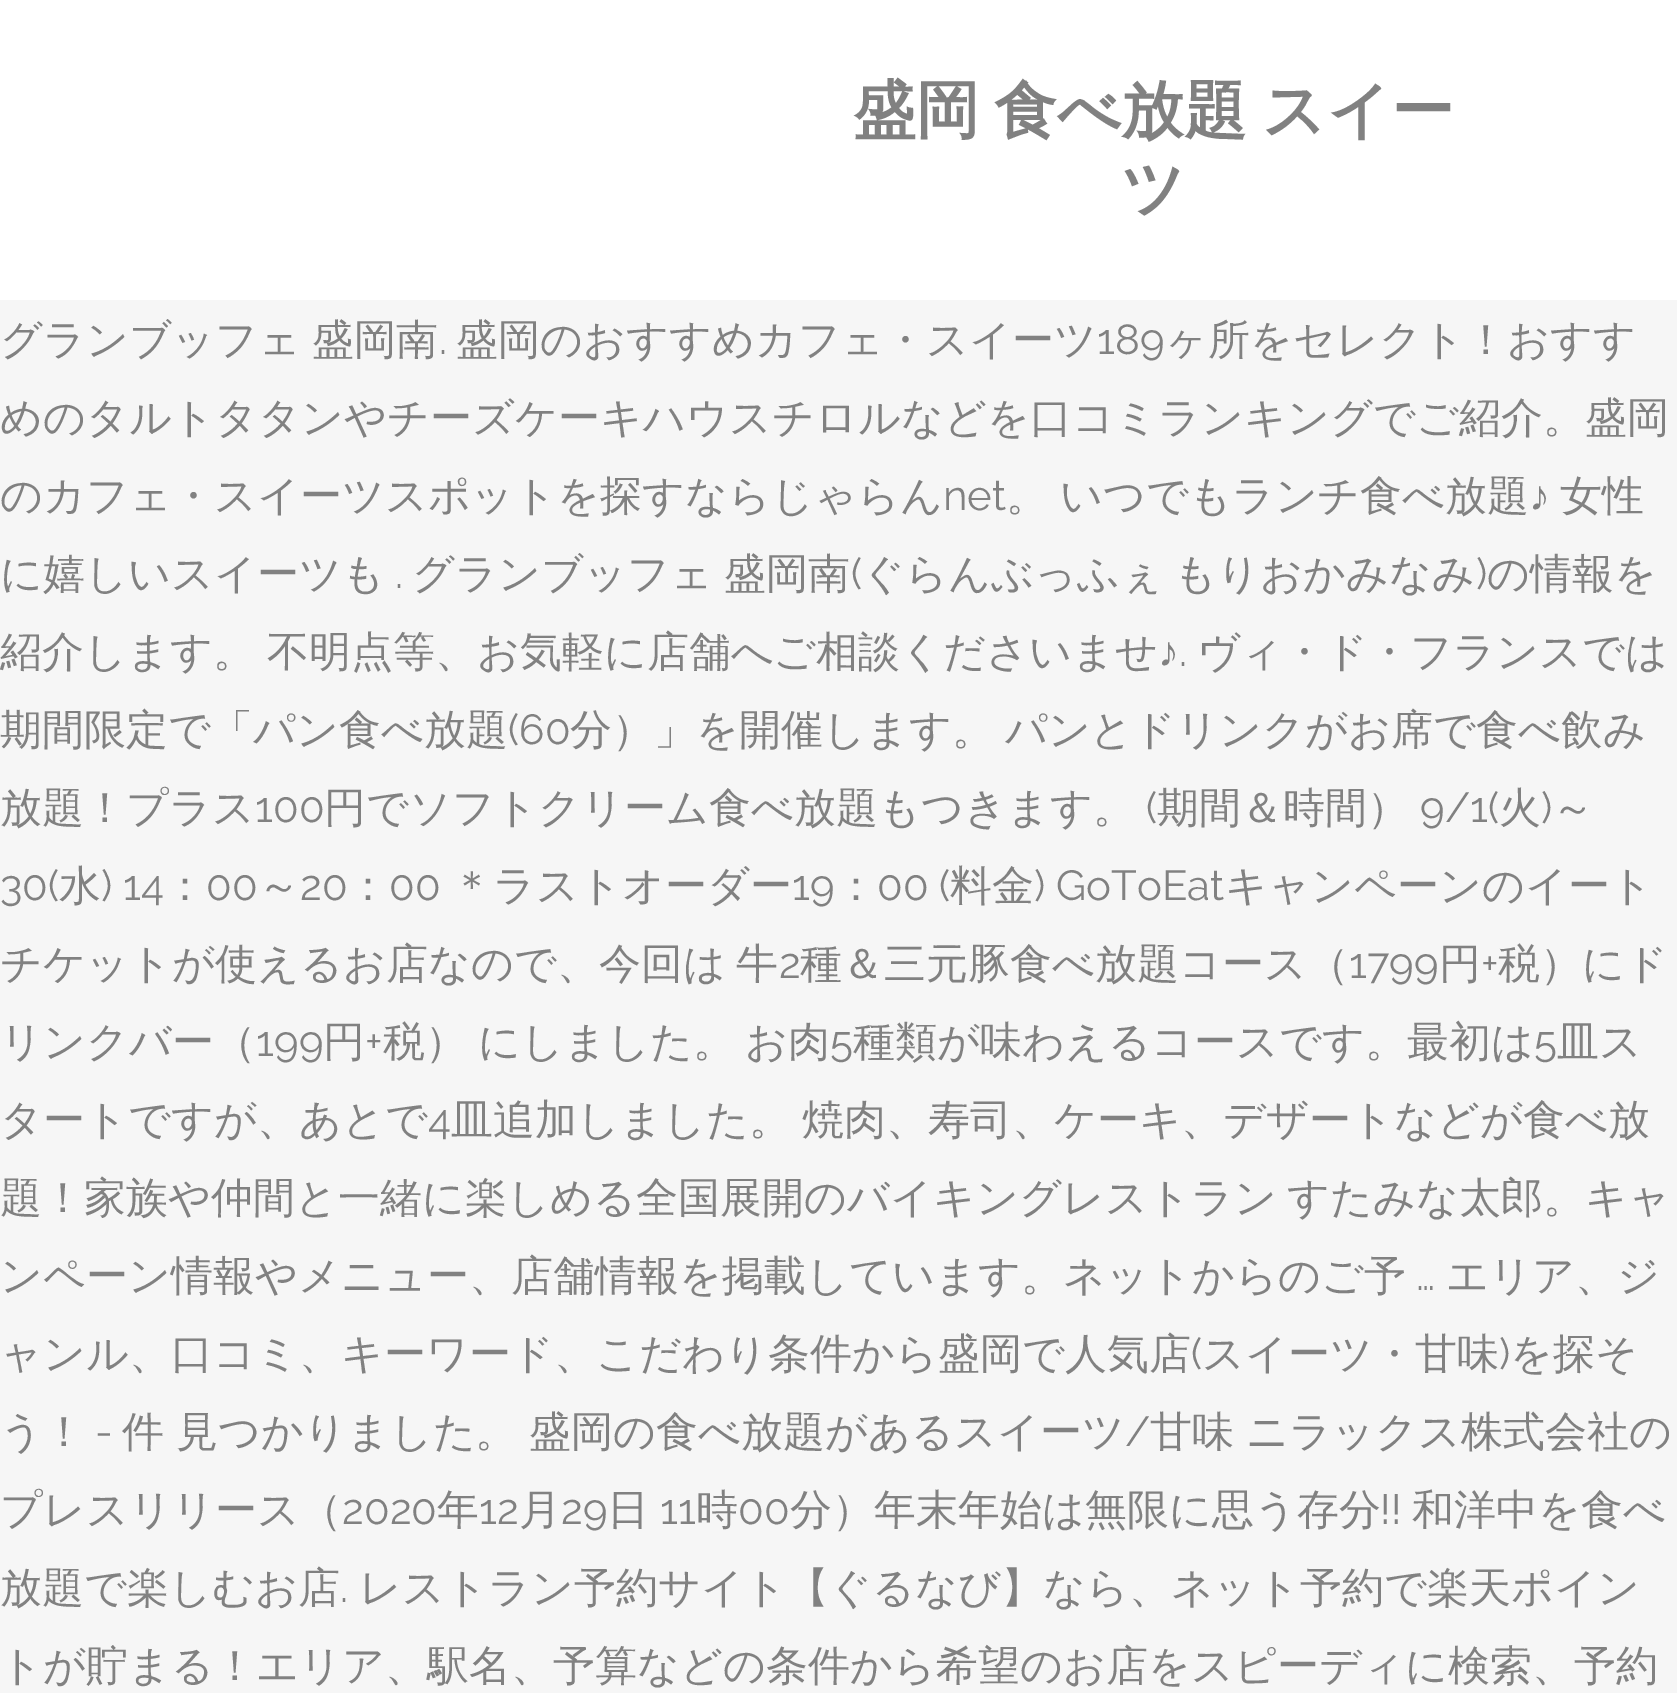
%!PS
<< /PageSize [1677 1693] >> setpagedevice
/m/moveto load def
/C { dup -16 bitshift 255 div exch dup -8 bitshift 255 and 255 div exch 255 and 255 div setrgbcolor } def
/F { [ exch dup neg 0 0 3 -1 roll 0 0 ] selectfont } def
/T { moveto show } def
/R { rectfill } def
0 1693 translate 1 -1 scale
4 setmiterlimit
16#F6F6F6 C
0 0 1677 1693 R
16#FFFFFF C
0 0 1677 300 R
/WenQuanYiZenHei-Bold 63 F
16#818181 C
853 132 m -4 0 32 (盛岡 食べ放題 スイー) widthshow
(ツ) 1121 210 T
/WenQuanYiZenHei-Medium 42 F
0 354 m -1 0 32 (グランブッフェ 盛岡南) widthshow
/Raleway-Regular 42 F
(.) 439 354 T
/WenQuanYiZenHei-Medium 42 F
(盛岡のおすすめカフェ・スイーツ) 456 354 T
/Raleway-Regular 42 F
(189) 1097 354 T
/WenQuanYiZenHei-Medium 42 F
(ヶ所をセレクト！おすす) 1165 354 T
(めのタルトタタンやチーズケーキハウスチロルなどを口コミランキングでご紹介。盛岡) 0 432 T
(のカフェ・スイーツスポットを探すならじゃらん) 0 510 T
/Raleway-Regular 42 F
(net) 943 510 T
/WenQuanYiZenHei-Medium 42 F
1006 510 m -1 0 32 (。 いつでもランチ食べ放題) widthshow
/LiberationSans-Regular 42 F
(♪) 1529 510 T
/WenQuanYiZenHei-Medium 42 F
(女性) 1560 510 T
(に嬉しいスイーツも) 0 588 T
/Raleway-Regular 42 F
(.) 395 588 T
/WenQuanYiZenHei-Medium 42 F
412 588 m -1 0 32 (グランブッフェ 盛岡南) widthshow
/Raleway-Regular 42 F
(\() 851 588 T
/WenQuanYiZenHei-Medium 42 F
862 588 m -1 0 32 (ぐらんぶっふぇ もりおかみなみ) widthshow
/Raleway-Regular 42 F
(\)) 1476 588 T
/WenQuanYiZenHei-Medium 42 F
(の情報を) 1487 588 T
0 666 m -1 0 32 (紹介します。 不明点等、お気軽に店舗へご相談くださいませ) widthshow
/LiberationSans-Regular 42 F
(♪) 1158 666 T
/Raleway-Regular 42 F
(.) 1179 666 T
/WenQuanYiZenHei-Medium 42 F
(ヴィ・ド・フランスでは) 1197 666 T
(期間限定で「パン食べ放題) 0 744 T
/Raleway-Regular 42 F
(\(60) 508 744 T
/WenQuanYiZenHei-Medium 42 F
570 744 m -2 0 32 (分）」を開催します。 パンとドリンクがお席で食べ飲み) widthshow
(放題！プラス) 0 822 T
/Raleway-Regular 42 F
(100) 255 822 T
/WenQuanYiZenHei-Medium 42 F
(円でソフトクリーム食べ放題もつきます。) 324 822 T
/Raleway-Regular 42 F
(\() 1146 822 T
/WenQuanYiZenHei-Medium 42 F
(期間＆時間）) 1157 822 T
/Raleway-Regular 42 F
(9/1\() 1420 822 T
/WenQuanYiZenHei-Medium 42 F
(火) 1499 822 T
/Raleway-Regular 42 F
(\)) 1541 822 T
/WenQuanYiZenHei-Medium 42 F
(～) 1552 822 T
/Raleway-Regular 42 F
(30\() 0 900 T
/WenQuanYiZenHei-Medium 42 F
(水) 59 900 T
/Raleway-Regular 42 F
(\) 14) 101 900 T
/WenQuanYiZenHei-Medium 42 F
(：) 164 900 T
/Raleway-Regular 42 F
(00) 206 900 T
/WenQuanYiZenHei-Medium 42 F
(～) 258 900 T
/Raleway-Regular 42 F
(20) 300 900 T
/WenQuanYiZenHei-Medium 42 F
(：) 347 900 T
/Raleway-Regular 42 F
(00) 389 900 T
/WenQuanYiZenHei-Medium 42 F
(＊ラストオーダー) 451 900 T
/Raleway-Regular 42 F
(19) 792 900 T
/WenQuanYiZenHei-Medium 42 F
(：) 835 900 T
/Raleway-Regular 42 F
(00 \() 877 900 T
/WenQuanYiZenHei-Medium 42 F
(料金) 950 900 T
/Raleway-Regular 42 F
(\) GoToEat) 1034 900 T
/WenQuanYiZenHei-Medium 42 F
(キャンペーンのイート) 1225 900 T
0 978 m -2 0 32 (チケットが使えるお店なので、今回は 牛) widthshow
/Raleway-Regular 42 F
(2) 779 978 T
/WenQuanYiZenHei-Medium 42 F
(種＆三元豚食べ放題コース（) 800 978 T
/Raleway-Regular 42 F
(1799) 1349 978 T
/WenQuanYiZenHei-Medium 42 F
(円) 1439 978 T
/Raleway-Regular 42 F
(+) 1481 978 T
/WenQuanYiZenHei-Medium 42 F
(税）にド) 1498 978 T
(リンクバー（) 0 1056 T
/Raleway-Regular 42 F
(199) 256 1056 T
/WenQuanYiZenHei-Medium 42 F
(円) 323 1056 T
/Raleway-Regular 42 F
(+) 365 1056 T
/WenQuanYiZenHei-Medium 42 F
383 1056 m -2 0 32 (税） にしました。 お肉) widthshow
/Raleway-Regular 42 F
(5) 830 1056 T
/WenQuanYiZenHei-Medium 42 F
(種類が味わえるコースです。最初は) 853 1056 T
/Raleway-Regular 42 F
(5) 1534 1056 T
/WenQuanYiZenHei-Medium 42 F
(皿ス) 1557 1056 T
(タートですが、あとで) 0 1134 T
/Raleway-Regular 42 F
(4) 428 1134 T
/WenQuanYiZenHei-Medium 42 F
451 1134 m -2 0 32 (皿追加しました。 焼肉、寿司、ケーキ、デザートなどが食べ放) widthshow
0 1212 m -2 0 32 (題！家族や仲間と一緒に楽しめる全国展開のバイキングレストラン すたみな太郎。キャ) widthshow
(ンペーン情報やメニュー、店舗情報を掲載しています。ネットからのご予) 0 1290 T
/Raleway-Regular 42 F
(…) 1416 1290 T
/WenQuanYiZenHei-Medium 42 F
(エリア、ジ) 1446 1290 T
(ャンル、口コミ、キーワード、こだわり条件から盛岡で人気店) 0 1368 T
/Raleway-Regular 42 F
(\() 1191 1368 T
/WenQuanYiZenHei-Medium 42 F
(スイーツ・甘味) 1202 1368 T
/Raleway-Regular 42 F
(\)) 1499 1368 T
/WenQuanYiZenHei-Medium 42 F
(を探そ) 1510 1368 T
(う！) 0 1446 T
/Raleway-Regular 42 F
(-) 95 1446 T
/WenQuanYiZenHei-Medium 42 F
122 1446 m -1 0 32 (件 見つかりました。 盛岡の食べ放題があるスイーツ) widthshow
/Raleway-Regular 42 F
(/) 1125 1446 T
/WenQuanYiZenHei-Medium 42 F
1150 1446 m -1 0 32 (甘味 ニラックス株式会社の) widthshow
(プレスリリース（) 0 1524 T
/Raleway-Regular 42 F
(2020) 342 1524 T
/WenQuanYiZenHei-Medium 42 F
(年) 437 1524 T
/Raleway-Regular 42 F
(12) 479 1524 T
/WenQuanYiZenHei-Medium 42 F
(月) 519 1524 T
/Raleway-Regular 42 F
(29) 561 1524 T
/WenQuanYiZenHei-Medium 42 F
(日) 607 1524 T
/Raleway-Regular 42 F
(11) 660 1524 T
/WenQuanYiZenHei-Medium 42 F
(時) 696 1524 T
/Raleway-Regular 42 F
(00) 738 1524 T
/WenQuanYiZenHei-Medium 42 F
(分）年末年始は無限に思う存分) 790 1524 T
/Raleway-Regular 42 F
(!!) 1380 1524 T
/WenQuanYiZenHei-Medium 42 F
(和洋中を食べ) 1412 1524 T
(放題で楽しむお店) 0 1602 T
/Raleway-Regular 42 F
(.) 340 1602 T
/WenQuanYiZenHei-Medium 42 F
(レストラン予約サイト【ぐるなび】なら、ネット予約で楽天ポイン) 359 1602 T
(トが貯まる！エリア、駅名、予算などの条件から希望のお店をスピーディに検索、予約) 0 1680 T
showpage
